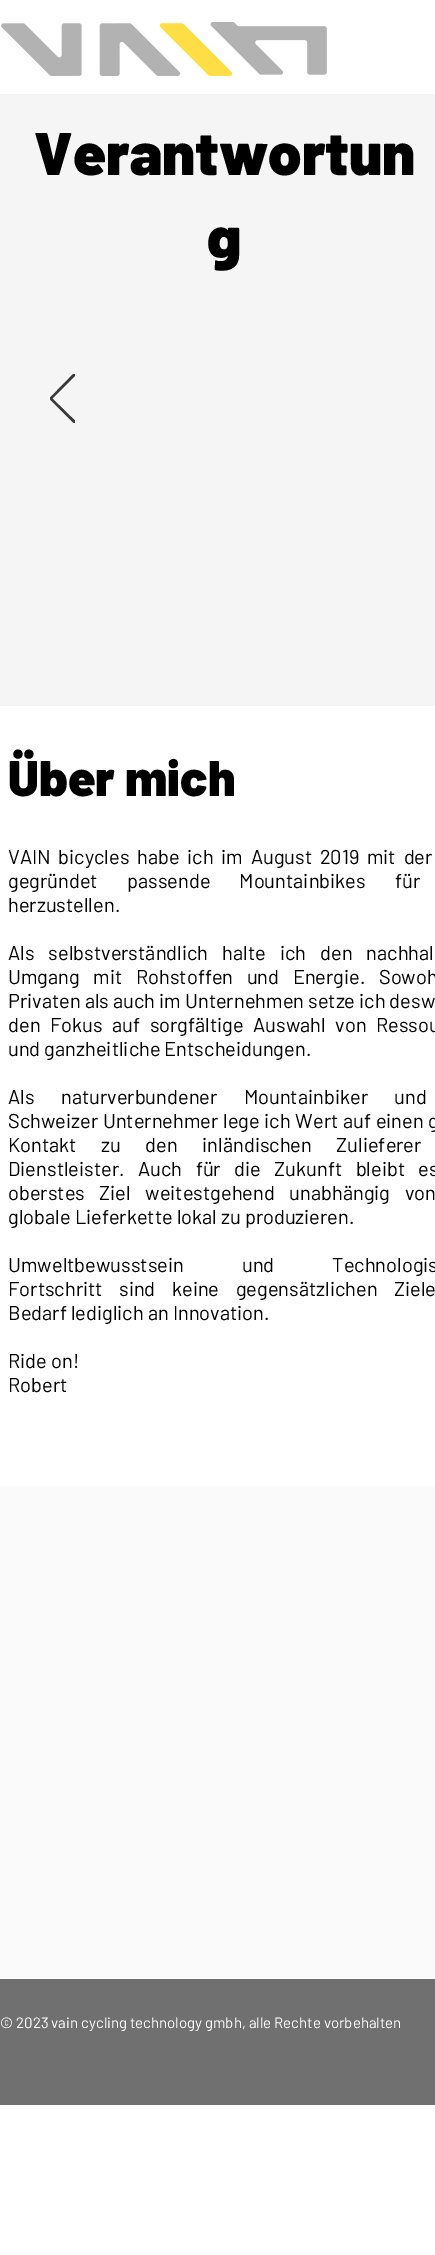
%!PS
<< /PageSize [435 2255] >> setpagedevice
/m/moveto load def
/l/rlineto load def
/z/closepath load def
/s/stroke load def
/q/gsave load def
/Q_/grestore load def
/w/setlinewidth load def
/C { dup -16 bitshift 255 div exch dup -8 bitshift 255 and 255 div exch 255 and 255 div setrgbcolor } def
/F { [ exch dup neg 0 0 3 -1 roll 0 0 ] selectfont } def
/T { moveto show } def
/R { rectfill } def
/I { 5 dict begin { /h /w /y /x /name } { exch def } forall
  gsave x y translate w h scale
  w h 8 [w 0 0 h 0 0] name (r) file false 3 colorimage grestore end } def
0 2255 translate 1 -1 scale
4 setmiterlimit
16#FFFFFF C
0 0 435 2255 R
(1.rgb) 1 22 326 54 I
16#F5F5F5 C
0 94 435 612 R
/Barlow-Black 60 F
16#000000 C
(Verantwortun) 34 175 T
(g) 207 259 T
q
50 374 25 49 rectclip
16#383838 C
1.2 w
74 422.5 m -24 -24 l 24 -24.5 l 1 1 l -23.5 23.5 l 23.5 23 l z s
Q_
/Barlow-Black 50 F
(Über mich) 8 796 T
/Barlow-Regular 20 F
8 864 m 3.75 0 32 (VAIN bicycles habe ich im August 2019 mit der) widthshow
8 888 m 25 0 32 (gegründet passende Mountainbikes für) widthshow
(herzustellen.) 8 912 T
8 960 m 10 0 32 (Als selbstverständlich halte ich den nachhal) widthshow
8 984 m 9.5 0 32 (Umgang mit Rohstoffen und Energie. Sowoh) widthshow
(Privaten als auch im Unternehmen setze ich desw) 8 1008 T
8 1032 m 5.5 0 32 (den Fokus auf sorgfältige Auswahl von Ressou) widthshow
(und ganzheitliche Entscheidungen.) 8 1056 T
8 1104 m 22.5 0 32 (Als naturverbundener Mountainbiker und) widthshow
8 1128 m .75 0 32 (Schweizer Unternehmer lege ich Wert auf einen g) widthshow
8 1152 m 20.5 0 32 (Kontakt zu den inländischen Zulieferer) widthshow
8 1176 m 9.5 0 32 (Dienstleister. Auch für die Zukunft bleibt es) widthshow
8 1200 m 10.5 0 32 (oberstes Ziel weitestgehend unabhängig von) widthshow
(globale Lieferkette lokal zu produzieren.) 8 1224 T
8 1272 m 54 0 32 (Umweltbewusstsein und Technologis) widthshow
(Fortschritt) 8 1296 T
119 1296 m 12.5 0 32 (sind keine gegensätzlichen Ziele) widthshow
(Bedarf lediglich an Innovation.) 8 1320 T
(Ride on!) 8 1368 T
(Robert) 8 1392 T
16#FAFAFA C
0 1486 435 493 R
16#707070 C
0 1979 435 126 R
/Barlow-Regular 15 F
16#FFFFFF C
(© 2023 vain cycling technology gmbh, alle Rechte vorbehalten) 0 2028 T
showpage
